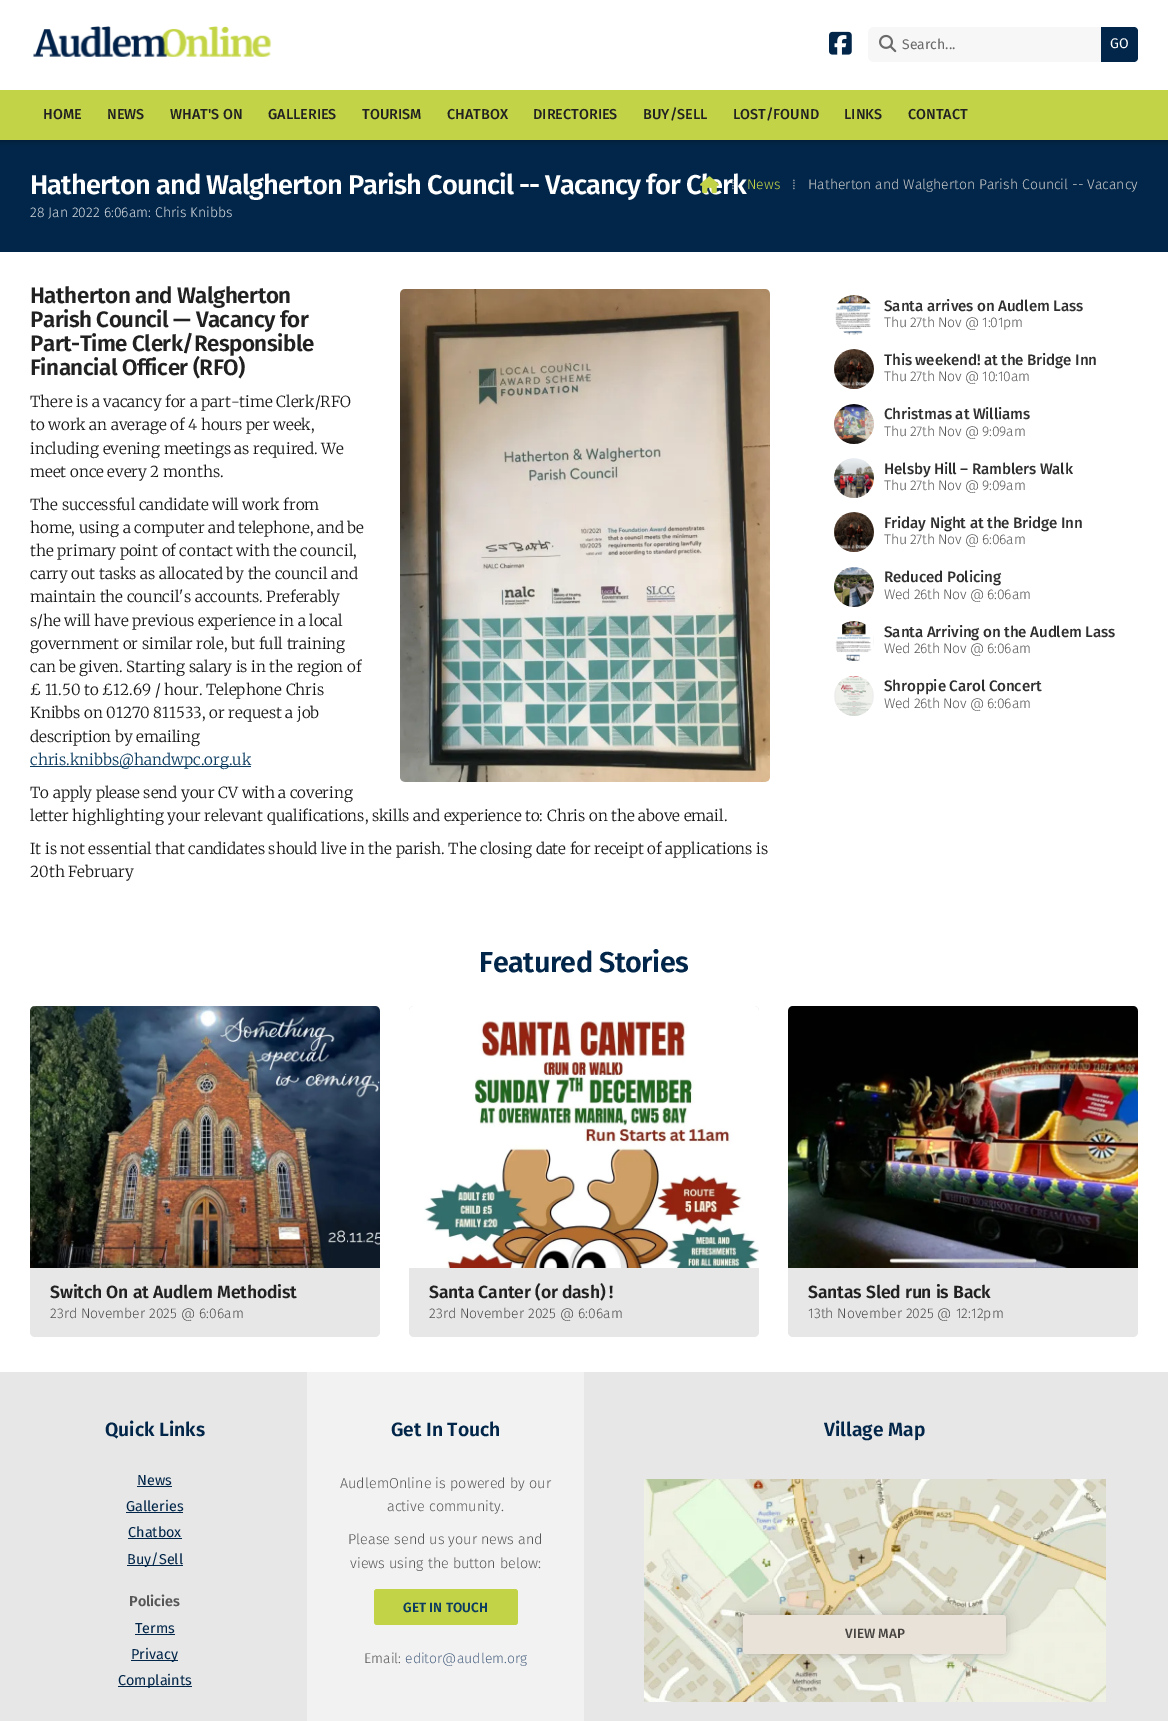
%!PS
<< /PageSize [1168 1721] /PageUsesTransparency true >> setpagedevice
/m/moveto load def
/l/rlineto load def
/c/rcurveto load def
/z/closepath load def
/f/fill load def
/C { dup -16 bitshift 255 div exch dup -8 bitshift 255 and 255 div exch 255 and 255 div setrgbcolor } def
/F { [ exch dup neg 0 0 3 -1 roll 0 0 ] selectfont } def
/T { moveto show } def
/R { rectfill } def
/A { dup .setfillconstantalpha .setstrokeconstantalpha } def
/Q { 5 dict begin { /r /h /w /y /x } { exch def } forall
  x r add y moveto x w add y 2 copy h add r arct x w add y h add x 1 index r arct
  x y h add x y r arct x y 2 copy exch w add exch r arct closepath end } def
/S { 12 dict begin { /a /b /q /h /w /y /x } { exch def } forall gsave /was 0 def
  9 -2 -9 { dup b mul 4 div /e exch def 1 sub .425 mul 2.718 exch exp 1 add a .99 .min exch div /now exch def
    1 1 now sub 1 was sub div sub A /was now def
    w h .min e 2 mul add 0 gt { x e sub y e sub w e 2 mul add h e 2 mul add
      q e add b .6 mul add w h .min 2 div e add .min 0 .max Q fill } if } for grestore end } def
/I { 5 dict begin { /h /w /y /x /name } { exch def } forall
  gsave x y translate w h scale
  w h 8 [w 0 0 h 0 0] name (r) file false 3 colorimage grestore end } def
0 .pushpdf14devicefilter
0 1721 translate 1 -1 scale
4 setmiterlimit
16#FFFFFF C
0 0 1168 1721 R
16#022649 C
0 140 1168 112 R
16#000000 C
0 1 1168 140 0 3 .3 S
16#FFFFFF C
0 0 1168 90 R
(1.rgb) 33 26 239 31 I
(2.rgb) 829 31 23 24 I
16#F7F7F7 C
868 27 270 35 6 Q f
(3.rgb) 879 34 18 19 I
/FiraSans-Regular 14 F
16#6A6A6A C
(Search...) 902 49 T
16#022649 C
1101 27 m 33 0 l 2 0 4 2 4 4 c 0 27 l 0 2 -2 4 -4 4 c -33 0 l z f
16#FFFFFF C
(GO) 1110 48 T
16#C2D347 C
0 90 1168 50 R
/FiraSans-Medium 14.4 F
16#212121 C
(HOME) 43 119 T
(NEWS) 107 119 T
(WHAT'S ON) 170 119 T
(GALLERIES) 268 119 T
(TOURISM) 362 119 T
(CHATBOX) 447 119 T
(DIRECTORIES) 533 119 T
(BUY/SELL) 643 119 T
(LOST/FOUND) 733 119 T
(LINKS) 844 119 T
(CONTACT) 908 119 T
/FiraSans-SemiBold 27.2 F
16#FFFFFF C
30 194 m -.8 0 (Hatherton and Walgherton Parish Council -- Vacancy for Clerk) ashow
(4.rgb) 700 176 19 18 I
/LiberationSerif-Regular 14 F
16#A2A9B1 C
(⁞) 731 189 T
/FiraSans-Light 14 F
16#C2D347 C
(News) 747 189 T
/LiberationSerif-Regular 14 F
16#99A2AB C
(⁞) 792 189 T
/FiraSans-Light 14 F
16#CBCBCB C
(Hatherton and Walgherton Parish Council -- Vacancy) 808 189 T
16#D5DAE0 C
(28 Jan 2022 6:06am: Chris Knibbs) 30 217 T
/FiraSans-SemiBold 22.4 F
16#212121 C
30 303 m -.5 0 (Hatherton and Walgherton) ashow
30 327 m -.5 0 (Parish Council — Vacancy for) ashow
30 351 m -.5 0 (Part-Time Clerk/Responsible) ashow
30 375 m -.5 0 (Financial Officer \(RFO\)) ashow
(5.rgb) 400 289 370 493 I
/Merriweather-Light 15.2 F
16#171717 C
(There is a vacancy for a part-time Clerk/RFO) 30 407 T
(to work an average of 4 hours per week,) 30 430 T
(including evening meetings as required. We) 30 454 T
(meet once every 2 months.) 30 477 T
(The successful candidate will work from) 30 510 T
(home, using a computer and telephone, and be) 30 533 T
(the primary point of contact with the council,) 30 556 T
(carry out tasks as allocated by the council and) 30 579 T
(maintain the council's accounts. Preferably) 30 602 T
(s/he will have previous experience in a local) 30 626 T
(government or similar role, but full training) 30 649 T
(can be given. Starting salary is in the region of) 30 672 T
(£ 11.50 to £12.69 / hour. Telephone Chris) 30 695 T
(Knibbs on 01270 811533, or request a job) 30 718 T
(description by emailing) 30 742 T
16#0C3C60 C
30 766 221 1 R
(chris.knibbs@handwpc.org.uk) 30 765 T
16#171717 C
(To apply please send your CV with a covering) 30 798 T
(letter highlighting your relevant qualifications, skills and experience to: Chris on the above email.) 30 821 T
(It is not essential that candidates should live in the parish. The closing date for receipt of applications is) 30 854 T
(20th February) 30 877 T
(6.rgb) 835 295 36 40 I
/FiraSans-Medium 15.2 F
16#303030 C
884 311 m -.15 0 (Santa arrives on Audlem Lass) ashow
/FiraSans-Light 14 F
16#575757 C
884 327 m -.3 0 (Thu 27th Nov @ 1:01pm) ashow
(7.rgb) 834 349 40 40 I
/FiraSans-Medium 15.2 F
16#303030 C
884 365 m -.15 0 (This weekend! at the Bridge Inn) ashow
/FiraSans-Light 14 F
16#575757 C
884 381 m -.3 0 (Thu 27th Nov @ 10:10am) ashow
(8.rgb) 834 404 40 40 I
/FiraSans-Medium 15.2 F
16#303030 C
884 419 m -.15 0 (Christmas at Williams) ashow
/FiraSans-Light 14 F
16#575757 C
884 436 m -.3 0 (Thu 27th Nov @ 9:09am) ashow
(9.rgb) 834 458 40 40 I
/FiraSans-Medium 15.2 F
16#303030 C
884 474 m -.15 0 (Helsby Hill – Ramblers Walk) ashow
/FiraSans-Light 14 F
16#575757 C
884 490 m -.3 0 (Thu 27th Nov @ 9:09am) ashow
(7.rgb) 834 512 40 40 I
/FiraSans-Medium 15.2 F
16#303030 C
884 528 m -.15 0 (Friday Night at the Bridge Inn) ashow
/FiraSans-Light 14 F
16#575757 C
884 544 m -.3 0 (Thu 27th Nov @ 6:06am) ashow
(10.rgb) 834 567 40 40 I
/FiraSans-Medium 15.2 F
16#303030 C
884 582 m -.15 0 (Reduced Policing) ashow
/FiraSans-Light 14 F
16#575757 C
884 599 m -.3 0 (Wed 26th Nov @ 6:06am) ashow
(11.rgb) 835 621 39 40 I
/FiraSans-Medium 15.2 F
16#303030 C
884 637 m -.15 0 (Santa Arriving on the Audlem Lass) ashow
/FiraSans-Light 14 F
16#575757 C
884 653 m -.3 0 (Wed 26th Nov @ 6:06am) ashow
(12.rgb) 834 676 40 40 I
/FiraSans-Medium 15.2 F
16#303030 C
884 691 m -.15 0 (Shroppie Carol Concert) ashow
/FiraSans-Light 14 F
16#575757 C
884 708 m -.3 0 (Wed 26th Nov @ 6:06am) ashow
/FiraSans-SemiBold 28.75 F
16#022649 C
479 972 m -.5 0 (Featured Stories) ashow
16#E7E7E7 C
30 1006 350 331 5 Q f
(13.rgb) 30 1006 350 262 I
/FiraSans-SemiBold 17.6 F
16#212121 C
50 1298 m -.15 0 (Switch On at Audlem Methodist) ashow
/FiraSans-Light 14 F
16#4F4F4F C
(23rd November 2025 @ 6:06am) 50 1318 T
16#E7E7E7 C
409 1006 350 331 5 Q f
(14.rgb) 409 1006 350 262 I
/FiraSans-SemiBold 17.6 F
16#212121 C
429 1298 m -.15 0 (Santa Canter \(or dash\) !) ashow
/FiraSans-Light 14 F
16#4F4F4F C
(23rd November 2025 @ 6:06am) 429 1318 T
16#E7E7E7 C
788 1006 350 331 5 Q f
(15.rgb) 788 1006 350 262 I
/FiraSans-SemiBold 17.6 F
16#212121 C
808 1298 m -.15 0 (Santas Sled run is Back) ashow
/FiraSans-Light 14 F
16#4F4F4F C
(13th November 2025 @ 12:12pm) 808 1318 T
16#E7E7E7 C
0 1372 1168 349 R
/FiraSans-SemiBold 19.25 F
16#022649 C
(Quick Links) 105 1436 T
/FiraSans-Regular 14.4 F
(News) 137 1485 T
137 1486 35 1 R
(Galleries) 126 1511 T
126 1512 57 1 R
(Chatbox) 128 1537 T
128 1538 54 1 R
127 1565 56 1 R
(Buy/Sell) 127 1564 T
/FiraSans-SemiBold 14.4 F
16#575757 C
(Policies) 129 1606 T
/FiraSans-Regular 14.4 F
16#022649 C
(Terms) 135 1633 T
135 1634 40 1 R
131 1660 47 1 R
(Privacy) 131 1659 T
118 1686 74 1 R
(Complaints) 118 1685 T
16#F2F2F2 C
307 1372 277 349 R
/FiraSans-SemiBold 19.25 F
16#022649 C
(Get In Touch) 391 1436 T
/FiraSans-Light 14.4 F
16#575757 C
(AudlemOnline is powered by our) 340 1488 T
(active community.) 387 1511 T
(Please send us your news and) 348 1544 T
(views using the button below:) 350 1568 T
16#C2D347 C
374 1589 144 36 3 Q f
/FiraSans-SemiBold 13.5 F
16#0C3C60 C
(GET IN TOUCH) 403 1612 T
/FiraSans-Light 14 F
16#575757 C
(Email:) 364 1663 T
16#506786 C
(editor@audlem.org) 405 1663 T
/FiraSans-SemiBold 19.25 F
16#022649 C
(Village Map) 824 1436 T
(16.rgb) 644 1479 462 223 I
16#000000 C
743 1615 263 39 3 6 .2 S
16#E9E2D8 C
743 1615 263 39 3 Q f
/FiraSans-Medium 13.5 F
16#464341 C
(VIEW MAP) 845 1638 T
.poppdf14devicefilter showpage
